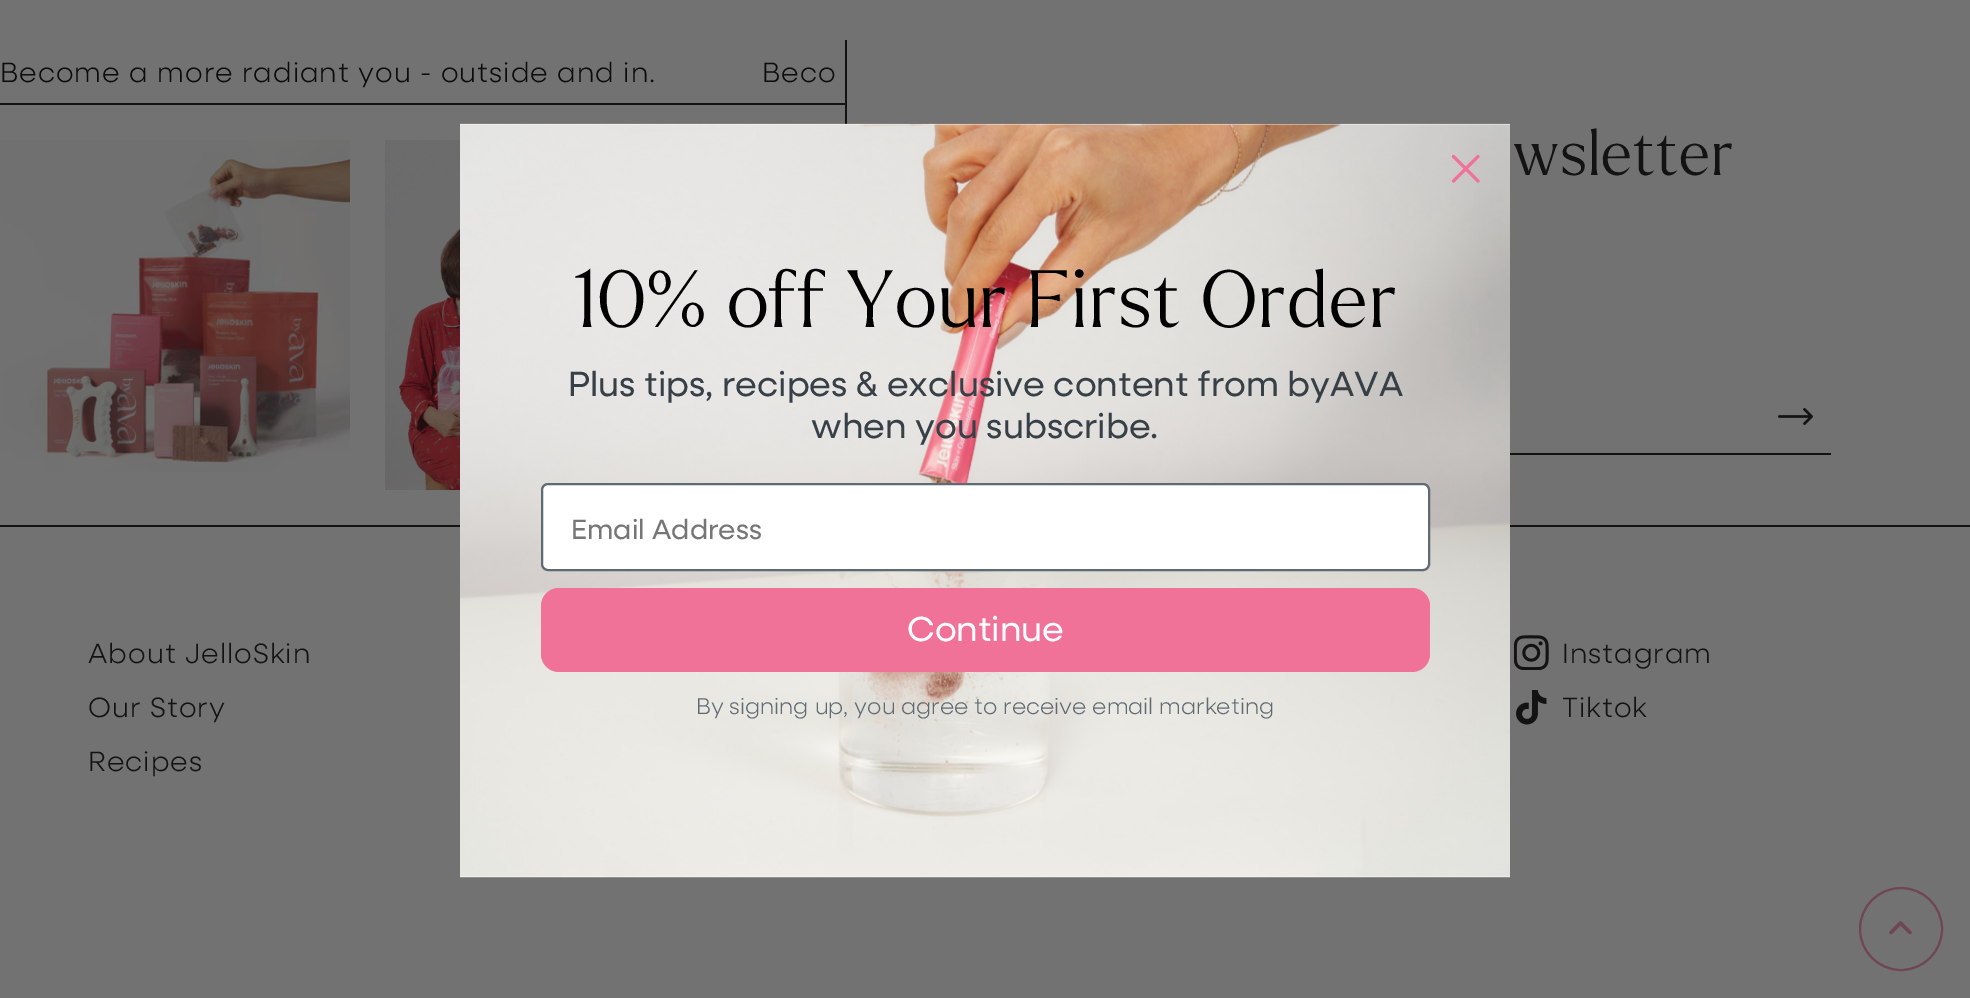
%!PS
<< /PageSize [1970 998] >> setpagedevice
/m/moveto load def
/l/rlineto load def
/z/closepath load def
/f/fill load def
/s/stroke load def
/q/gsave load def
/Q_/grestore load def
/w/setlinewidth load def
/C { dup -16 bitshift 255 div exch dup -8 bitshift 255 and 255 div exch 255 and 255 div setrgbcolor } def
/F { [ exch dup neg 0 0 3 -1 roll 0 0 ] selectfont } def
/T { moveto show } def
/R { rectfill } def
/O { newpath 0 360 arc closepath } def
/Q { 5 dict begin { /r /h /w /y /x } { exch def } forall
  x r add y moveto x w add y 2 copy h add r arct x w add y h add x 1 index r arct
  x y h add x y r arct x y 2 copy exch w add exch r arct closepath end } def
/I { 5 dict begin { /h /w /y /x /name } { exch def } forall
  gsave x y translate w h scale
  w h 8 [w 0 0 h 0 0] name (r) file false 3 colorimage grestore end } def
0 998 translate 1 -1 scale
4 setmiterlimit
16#727272 C
0 0 1970 998 R
/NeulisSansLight-Light 28 F
16#0C0C0C C
0 82 m 1.05 0 (Become a more radiant you - outside and in.) ashow
762 82 m 1.05 0 (Beco) ashow
16#131313 C
0 103 845 2 R
(1.rgb) 0 140 350 332 I
(2.rgb) 385 140 75 350 I
845 40 2 84 R
/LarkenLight-Light 63 F
1513 175 m 1.05 0 (wsletter) ashow
(3.rgb) 1778 408 35 17 I
1510 453 321 2 R
0 525 1970 2 R
/NeulisSansLight-Light 28 F
88 663 m 1.05 0 (About JelloSkin) ashow
88 717 m 1.05 0 (Our Story) ashow
88 771 m 1.05 0 (Recipes) ashow
(4.rgb) 1514 635 35 35 I
1562 663 m 1.05 0 (Instagram) ashow
(5.rgb) 1516 690 31 35 I
1562 717 m 1.05 0 (Tiktok) ashow
16#FFFFFF C
460 124 1050 753 R
(6.rgb) 460 123 1050 755 I
16#F07298 C
3.1 w
1 setlinecap
1 setlinejoin
1453.5 156.5 m 24.5 24.5 l 1453.5 181 m 24.5 -24.5 l z s
/LarkenLight-Light 78.75 F
16#000000 C
573 327 m 1.05 0 (10% off Your First Order) ashow
/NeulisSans-Regular 35 F
16#373F47 C
(Plus tips, recipes & exclusive content from byAVA) 568 396 T
(when you subscribe.) 811 438 T
16#FFFFFF C
542 484 887 86 6 Q q f Q_
16#606A72 C
2 w
0 setlinecap
0 setlinejoin
s
/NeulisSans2-Regular 28 F
16#767676 C
(Email Address) 571 539 T
16#F07298 C
541 588 889 84 18 Q f
/NeulisSans-Regular 35 F
16#FFFFFF C
(Continue) 907 641 T
/NeulisSansLight-Light 22.75 F
16#606A72 C
(By signing up, you agree to receive email marketing) 696 714 T
16#6F4652 C
1901 929 41 O s
3.2 w
1 setlinecap
1 setlinejoin
1891 932.5 m 9.5 -9.5 l 9.5 9.5 l s
showpage
